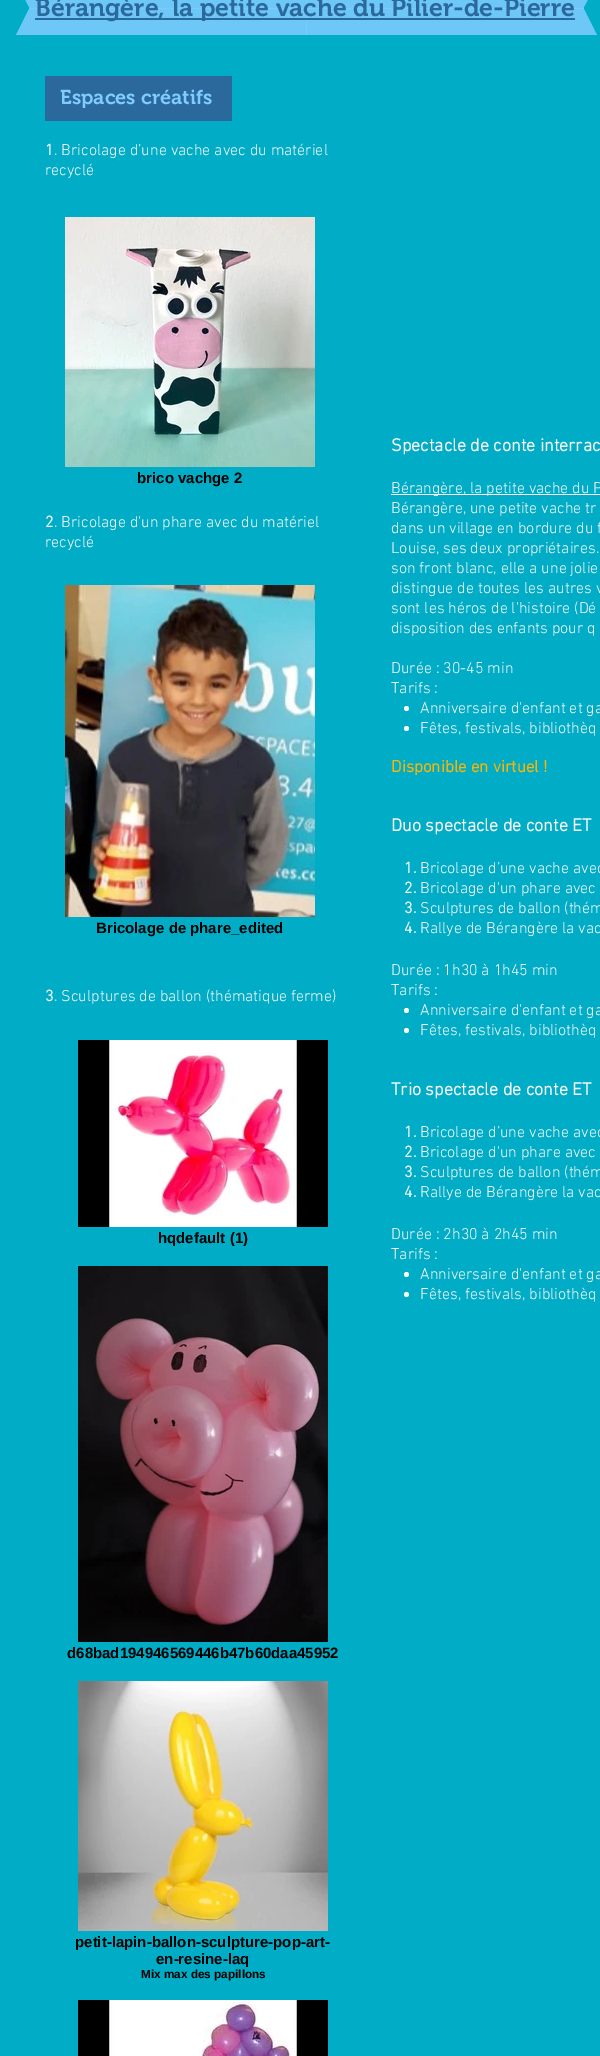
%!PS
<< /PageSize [600 2056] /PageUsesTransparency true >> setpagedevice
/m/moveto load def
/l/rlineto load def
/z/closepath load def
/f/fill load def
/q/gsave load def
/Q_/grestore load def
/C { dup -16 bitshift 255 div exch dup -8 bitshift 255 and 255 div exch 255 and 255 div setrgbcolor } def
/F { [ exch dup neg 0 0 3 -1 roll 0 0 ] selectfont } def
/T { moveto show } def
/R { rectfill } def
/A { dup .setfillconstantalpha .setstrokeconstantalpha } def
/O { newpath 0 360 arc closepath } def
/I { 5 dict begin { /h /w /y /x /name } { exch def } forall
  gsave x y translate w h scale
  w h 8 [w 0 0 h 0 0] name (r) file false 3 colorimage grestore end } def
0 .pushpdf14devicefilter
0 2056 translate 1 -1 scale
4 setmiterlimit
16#00ACC6 C
0 0 600 2056 R
q
16 0 291 9 rectclip
16#6DC8F7 C
16 -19 m 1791 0 l -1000 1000 l -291 0 l z f
Q_
q
306 0 291 9 rectclip
0.86 A
16#7FCCFF C
-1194 -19 m 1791 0 l -500 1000 l -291 0 l z f
Q_
q
16 8 291 27 rectclip
0.86 A
16#7FCCFF C
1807 35 m -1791 0 l 500 -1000 l 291 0 l z f
Q_
q
306 8 291 27 rectclip
0.86 A
16#7FCCFF C
597 35 m -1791 0 l 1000 -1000 l 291 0 l z f
Q_
16#2B689C C
35 18 540 2 R
/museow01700-SemiBold 25 F
(Bérangère, la petite vache du Pilier-de-Pierre) 35 16 T
45 76 187 45 R
/museow01700-SemiBold 20 F
16#7FCCFF C
(Espaces créatifs) 60 104 T
/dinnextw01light-Bold 16 F
16#F9F9F9 C
(1) 45 155 T
/dinnextw01light-Light 16 F
(. Bricolage d’une vache avec du matériel) 54 155 T
(recyclé) 45 175 T
(1.rgb) 65 217 250 250 I
/LiberationSans-Bold 15 F
16#000000 C
(brico vachge 2) 137 483 T
/dinnextw01light-Bold 18 F
16#F9F9F9 C
(Spectacle de conte interrac) 391 451 T
391 494 209 1 R
/dinnextw01light-Light 16 F
(Bérangère, la petite vache du P) 391 493 T
(Bérangère, une petite vache tr) 391 513 T
(dans un village en bordure du f) 391 533 T
(Louise, ses deux propriétaires.) 391 553 T
(son front blanc, elle a une jolie) 391 573 T
(distingue de toutes les autres v) 391 593 T
(sont les héros de l'histoire \(Dé) 391 613 T
(disposition des enfants pour q) 391 633 T
(Durée : 30-45 min) 391 673 T
(Tarifs :) 391 693 T
406.5 708.5 2.5 O f
(Anniversaire d'enfant et ga) 420 713 T
406.5 728.5 2.5 O f
(Fêtes, festivals, bibliothèq) 420 733 T
/dinnextw01light-Bold 17 F
16#FAB507 C
(Disponible en virtuel !) 391 772 T
/dinnextw01light-Bold 18 F
16#F9F9F9 C
(Duo spectacle de conte ET) 391 831 T
/dinnextw01light-Bold 16 F
(1.) 404 873 T
/dinnextw01light-Light 16 F
(Bricolage d’une vache avec) 420 873 T
/dinnextw01light-Bold 16 F
(2.) 404 893 T
/dinnextw01light-Light 16 F
(Bricolage d'un phare avec) 420 893 T
/dinnextw01light-Bold 16 F
(3.) 404 913 T
/dinnextw01light-Light 16 F
(Sculptures de ballon \(thém) 420 913 T
/dinnextw01light-Bold 16 F
(4.) 404 933 T
/dinnextw01light-Light 16 F
(Rallye de Bérangère la vac) 420 933 T
(Durée : 1h30 à 1h45 min) 391 975 T
(Tarifs :) 391 995 T
406.5 1010.5 2.5 O f
(Anniversaire d'enfant et ga) 420 1015 T
406.5 1030.5 2.5 O f
(Fêtes, festivals, bibliothèq) 420 1035 T
/dinnextw01light-Bold 18 F
(Trio spectacle de conte ET) 391 1095 T
/dinnextw01light-Bold 16 F
(1.) 404 1137 T
/dinnextw01light-Light 16 F
(Bricolage d’une vache avec) 420 1137 T
/dinnextw01light-Bold 16 F
(2.) 404 1157 T
/dinnextw01light-Light 16 F
(Bricolage d'un phare avec) 420 1157 T
/dinnextw01light-Bold 16 F
(3.) 404 1177 T
/dinnextw01light-Light 16 F
(Sculptures de ballon \(thém) 420 1177 T
/dinnextw01light-Bold 16 F
(4.) 404 1197 T
/dinnextw01light-Light 16 F
(Rallye de Bérangère la vac) 420 1197 T
(Durée : 2h30 à 2h45 min) 391 1239 T
(Tarifs :) 391 1259 T
406.5 1274.5 2.5 O f
(Anniversaire d'enfant et ga) 420 1279 T
406.5 1294.5 2.5 O f
(Fêtes, festivals, bibliothèq) 420 1299 T
/dinnextw01light-Bold 16 F
(2) 45 527 T
/dinnextw01light-Light 16 F
(. Bricolage d'un phare avec du matériel) 54 527 T
(recyclé) 45 547 T
(2.rgb) 65 585 250 332 I
/LiberationSans-Bold 15 F
16#000000 C
(Bricolage de phare_edited) 96 933 T
/dinnextw01light-Bold 16 F
16#F9F9F9 C
(3) 45 1001 T
/dinnextw01light-Light 16 F
(. Sculptures de ballon \(thématique ferme\)) 54 1001 T
(3.rgb) 78 1040 250 187 I
/LiberationSans-Bold 15 F
16#000000 C
(hqdefault \(1\)) 158 1243 T
(4.rgb) 78 1266 250 376 I
(d68bad194946569446b47b60daa45952) 67 1658 T
(5.rgb) 78 1681 250 250 I
(petit-lapin-ballon-sculpture-pop-art-) 75 1947 T
(en-resine-laq) 156 1964 T
/LiberationSans-Bold 11.75 F
(Mix max des papillons) 141 1978 T
(6.rgb) 78 2000 250 56 I
.poppdf14devicefilter showpage
